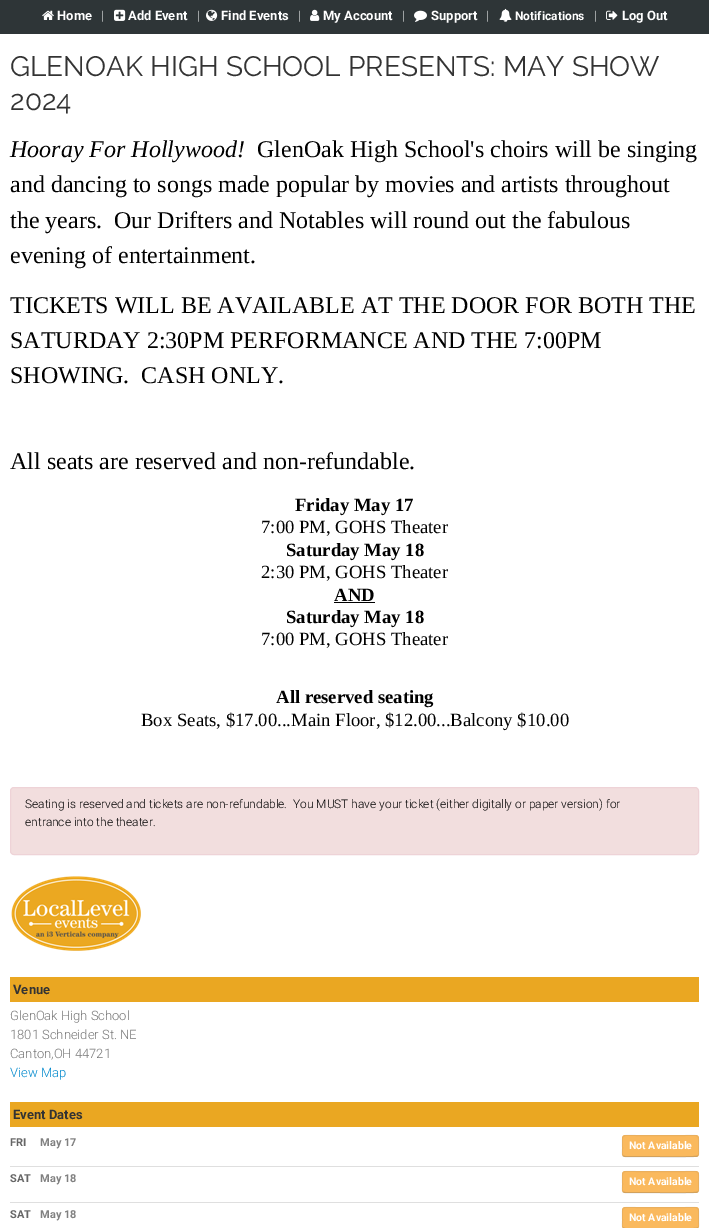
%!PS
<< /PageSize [709 1228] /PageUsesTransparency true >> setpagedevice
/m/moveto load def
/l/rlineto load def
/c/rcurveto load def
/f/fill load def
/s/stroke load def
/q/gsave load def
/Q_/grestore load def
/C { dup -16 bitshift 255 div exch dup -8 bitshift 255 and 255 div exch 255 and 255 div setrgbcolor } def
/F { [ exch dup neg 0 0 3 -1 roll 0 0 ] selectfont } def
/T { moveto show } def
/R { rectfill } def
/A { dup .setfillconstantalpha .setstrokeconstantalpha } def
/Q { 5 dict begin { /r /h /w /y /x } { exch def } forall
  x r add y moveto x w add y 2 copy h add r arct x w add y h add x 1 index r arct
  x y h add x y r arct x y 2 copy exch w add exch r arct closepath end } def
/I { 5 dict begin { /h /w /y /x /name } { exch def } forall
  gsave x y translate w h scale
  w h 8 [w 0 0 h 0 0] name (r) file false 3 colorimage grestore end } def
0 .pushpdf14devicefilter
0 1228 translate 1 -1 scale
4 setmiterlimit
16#FFFFFF C
0 0 709 1228 R
16#2E3537 C
0 0 709 34 R
(1.rgb) 42 10 12 10 I
/Roboto-Bold 13 F
16#FFFFFF C
(Home) 57 20 T
/Roboto-Light 13 F
(|) 101 20 T
(2.rgb) 114 9 12 12 I
/Roboto-Bold 13 F
(Add Event) 128 20 T
/Roboto-Light 13 F
(|) 197 20 T
(3.rgb) 206 9 12 12 I
/Roboto-Bold 13 F
(Find Events) 221 20 T
/Roboto-Light 13 F
(|) 298 20 T
(4.rgb) 310 9 10 12 I
/Roboto-Bold 13 F
(My Account) 323 20 T
/Roboto-Light 13 F
(|) 402 20 T
(5.rgb) 414 10 13 12 I
/Roboto-Bold 13 F
(Support) 431 20 T
/Roboto-Light 13 F
(|) 486 20 T
(6.rgb) 499 8 13 14 I
/Roboto-Bold 12 F
(Notifications) 515 20 T
/Roboto-Light 13 F
(|) 594 20 T
(7.rgb) 606 10 12 10 I
/Roboto-Bold 13 F
(Log Out) 622 20 T
/Raleway-Regular 28 F
16#333333 C
(GLENOAK HIGH SCHOOL PRESENTS: MAY SHOW) 10 76 T
(2024) 10 110 T
/LiberationSerif-Italic 24 F
16#000000 C
(Hooray For Hollywood!) 10 157 T
/LiberationSerif-Regular 24 F
(GlenOak High School's choirs will be singing) 257 157 T
(and dancing to songs made popular by movies and artists throughout) 10 192 T
(the years.  Our Drifters and Notables will round out the fabulous) 10 228 T
(evening of entertainment.) 10 263 T
(TICKETS WILL BE AVAILABLE AT THE DOOR FOR BOTH THE) 10 313 T
(SATURDAY 2:30PM PERFORMANCE AND THE 7:00PM) 10 348 T
(SHOWING.  CASH ONLY.) 10 383 T
(All seats are reserved and non-refundable.) 10 469 T
/LiberationSerif-Bold 18.7 F
(Friday May 17) 295 511 T
/LiberationSerif-Regular 18.7 F
(7:00 PM, GOHS Theater) 261 533 T
/LiberationSerif-Bold 18.7 F
(Saturday May 18) 286 556 T
/LiberationSerif-Regular 18.7 F
(2:30 PM, GOHS Theater) 261 578 T
/LiberationSerif-Bold 18.7 F
(AND) 334 601 T
334 602 41 1 R
(Saturday May 18) 286 623 T
/LiberationSerif-Regular 18.7 F
(7:00 PM, GOHS Theater) 261 645 T
/LiberationSerif-Bold 18.7 F
(All reserved seating) 276 703 T
/LiberationSerif-Regular 18.7 F
(Box Seats, $17.00...Main Floor, $12.00...Balcony $10.00) 141 726 T
16#F2DEDE C
10.5 787.5 688 67 3.5 Q q f Q_
16#EED3D7 C
s
/Roboto-Light 11.9 F
16#000000 C
(Seating is reserved and tickets are non-refundable.  You MUST have your ticket \(either digitally or paper version\) for) 25 808 T
(entrance into the theater.) 25 826 T
(8.rgb) 11 876 130 75 I
16#EAA722 C
10 977 689 25 R
/Roboto-Bold 13 F
16#333333 C
(Venue) 13 994 T
/Roboto-Light 13 F
16#777777 C
(GlenOak High School) 10 1020 T
(1801 Schneider St. NE) 10 1039 T
(Canton,OH 44721) 10 1058 T
16#0088CC C
(View Map) 10 1077 T
16#EAA722 C
10 1102 689 25 R
/Roboto-Bold 13 F
16#333333 C
(Event Dates) 13 1119 T
16#DFDFDF C
10 1166 689 1 R
/Roboto-Bold 11 F
16#666666 C
(FRI) 10 1146 T
16#808080 C
(May 17) 40 1146 T
16#FAB95D C
622 1135 77 22 3 Q f
0.25 A
16#595959 C
698 1156 m -.5 0 l -2 1.5 -54 .5 -60.5 .5 c -12 0 l -2 -.5 l s
0.1 A
623 1156 m -1.5 -2 -.5 -5.5 -.5 -7.5 c 0 -15.5 -2.5 -13 14.5 -13 c 47 0 l 17 0 14.5 -2.5 14.5 13 c 0 2 1 5.5 -.5 7.5 c s
/Roboto-Bold 10.5 F
1 A
16#FFFFFF C
(Not Available) 629 1149 T
16#DFDFDF C
10 1202 689 1 R
/Roboto-Bold 11 F
16#666666 C
(SAT) 10 1182 T
16#808080 C
(May 18) 40 1182 T
16#FAB95D C
622 1171 77 22 3 Q f
0.25 A
16#595959 C
698 1192 m -.5 0 l -2 1.5 -54 .5 -60.5 .5 c -12 0 l -2 -.5 l s
0.1 A
623 1192 m -1.5 -2 -.5 -5.5 -.5 -7.5 c 0 -15.5 -2.5 -13 14.5 -13 c 47 0 l 17 0 14.5 -2.5 14.5 13 c 0 2 1 5.5 -.5 7.5 c s
/Roboto-Bold 10.5 F
1 A
16#FFFFFF C
(Not Available) 629 1185 T
/Roboto-Bold 11 F
16#666666 C
(SAT) 10 1218 T
16#808080 C
(May 18) 40 1218 T
16#FAB95D C
622 1207 77 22 3 Q f
16#D2A15C C
698 1228 m -.5 0 l -2 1.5 -54 .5 -60.5 .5 c -12 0 l -2 -.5 l s
0.1 A
16#595959 C
623 1228 m -1.5 -2 -.5 -5.5 -.5 -7.5 c 0 -15.5 -2.5 -13 14.5 -13 c 47 0 l 17 0 14.5 -2.5 14.5 13 c 0 2 1 5.5 -.5 7.5 c s
/Roboto-Bold 10.5 F
1 A
16#FFFFFF C
(Not Available) 629 1221 T
.poppdf14devicefilter showpage
